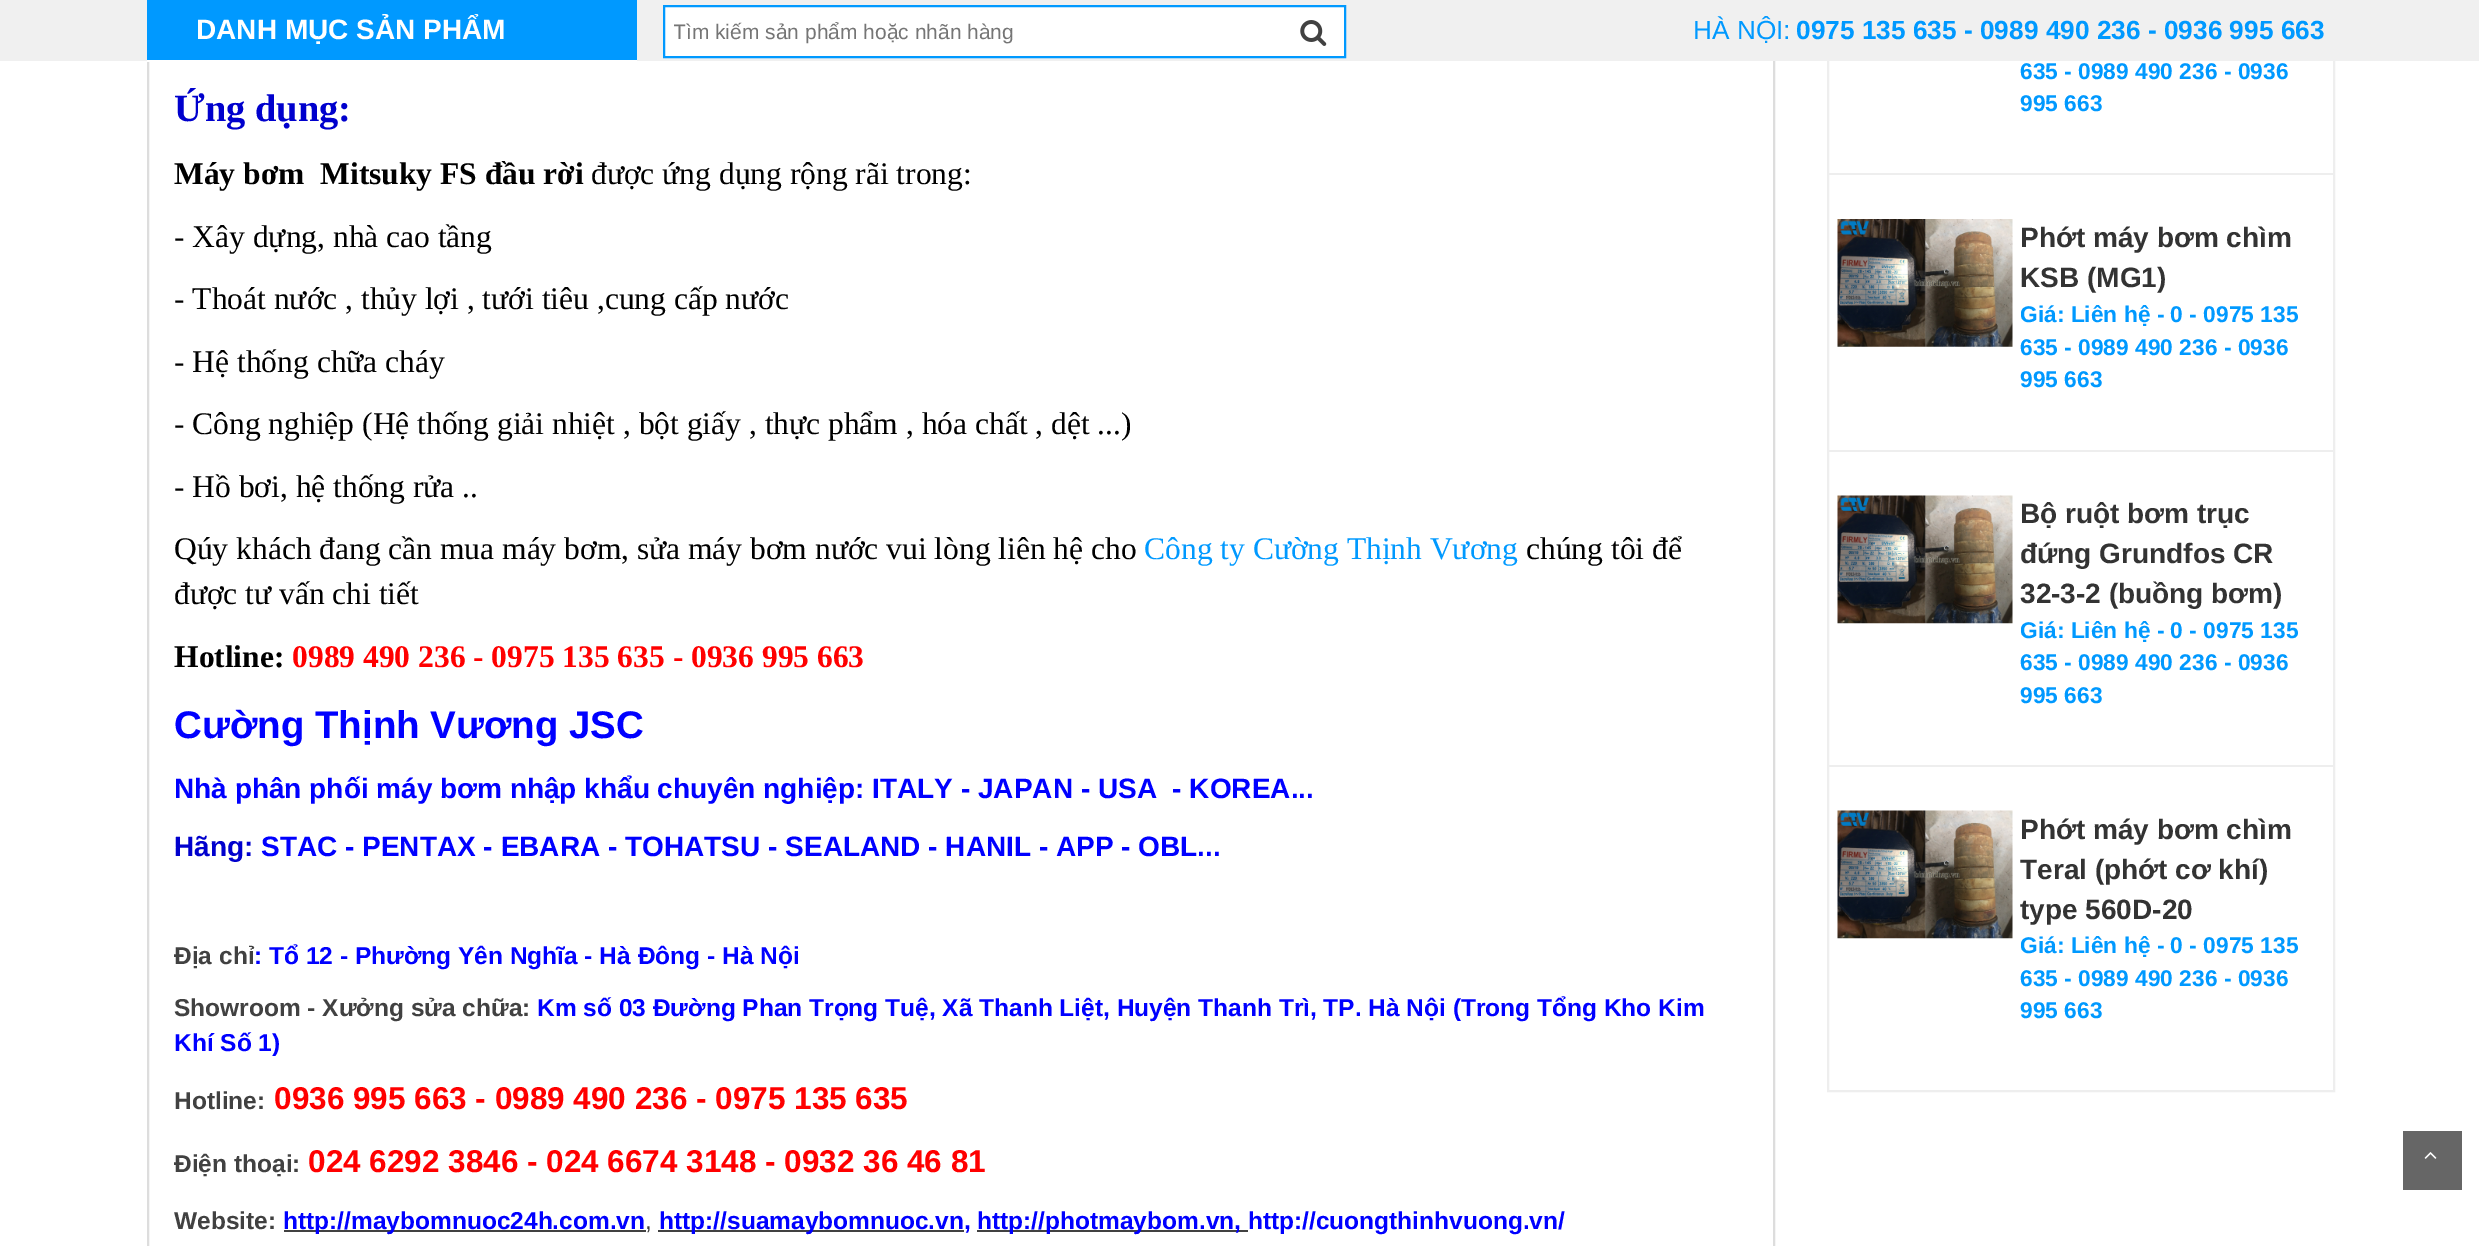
%!PS
<< /PageSize [2479 1246] >> setpagedevice
/m/moveto load def
/l/rlineto load def
/z/closepath load def
/f/fill load def
/s/stroke load def
/q/gsave load def
/Q_/grestore load def
/w/setlinewidth load def
/C { dup -16 bitshift 255 div exch dup -8 bitshift 255 and 255 div exch 255 and 255 div setrgbcolor } def
/F { [ exch dup neg 0 0 3 -1 roll 0 0 ] selectfont } def
/T { moveto show } def
/R { rectfill } def
/I { 5 dict begin { /h /w /y /x /name } { exch def } forall
  gsave x y translate w h scale
  w h 8 [w 0 0 h 0 0] name (r) file false 3 colorimage grestore end } def
0 1246 translate 1 -1 scale
4 setmiterlimit
16#FFFFFF C
0 0 2479 1246 R
16#DDDDDD C
2 w
148 -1 1626 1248 rectstroke
16#EEEEEE C
1828 -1 506 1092 rectstroke
16#F0F0F0 C
0 0 2479 61 R
16#0099FF C
147 0 490 60 R
16#FFFFFF C
147 60 490 2 R
/LiberationSans-Bold 28 F
(DANH MỤC SẢN PHẨM) 196 39 T
664 6 m 681 0 l 0 51 l -681 0 l z q f Q_
16#0099FF C
s
q
674 19 670 25 rectclip
/LiberationSans-Regular 21 F
16#757575 C
(Tìm kiếm sản phẩm hoặc nhãn hàng) 673 39 T
Q_
(1.rgb) 1300 20 27 26 I
/LiberationSans-Regular 26.25 F
(HÀ NỘI:) 1693 39 T
/LiberationSans-Bold 26.25 F
(0975 135 635 - 0989 490 236 - 0936 995 663) 1796 39 T
/LiberationSerif-Bold 38.5 F
16#0000CD C
(Ứng dụng:) 174 121 T
/LiberationSerif-Bold 31.5 F
16#000000 C
(Máy bơm  Mitsuky FS đầu rời) 174 184 T
/LiberationSerif-Regular 31.5 F
(được ứng dụng rộng rãi trong:) 591 184 T
(- Xây dựng, nhà cao tầng) 174 247 T
(- Thoát nước , thủy lợi , tưới tiêu ,cung cấp nước) 174 309 T
(- Hệ thống chữa cháy) 174 372 T
(- Công nghiệp \(Hệ thống giải nhiệt , bột giấy , thực phẩm , hóa chất , dệt ...\)) 174 434 T
(- Hồ bơi, hệ thống rửa ..) 174 497 T
(Qúy khách đang cần mua máy bơm, sửa máy bơm nước vui lòng liên hệ cho) 174 559 T
16#0099FF C
(Công ty Cường Thịnh Vương) 1144 559 T
16#000000 C
(chúng tôi để) 1526 559 T
(được tư vấn chi tiết) 174 604 T
/LiberationSerif-Bold 31.5 F
(Hotline:) 174 667 T
16#FF0000 C
(0989 490 236 - 0975 135 635 - 0936 995 663) 292 667 T
/LiberationSans-Bold 38.5 F
16#0000FF C
(Cường Thịnh Vương JSC) 174 738 T
/LiberationSans-Bold 28 F
(Nhà phân phối máy bơm nhập khẩu chuyên nghiệp: ITALY - JAPAN - USA  - KOREA...) 174 798 T
16#0000CD C
(Hãng:) 174 856 T
16#0000FF C
(STAC - PENTAX - EBARA - TOHATSU - SEALAND - HANIL - APP - OBL...) 261 856 T
/LiberationSans-Bold 24.5 F
16#414141 C
(Địa chỉ) 174 964 T
16#0000FF C
(: Tổ 12 - Phường Yên Nghĩa - Hà Đông - Hà Nội) 254 964 T
16#414141 C
(Showroom - Xưởng sửa chữa:) 174 1016 T
16#0000FF C
(Km số 03 Đường Phan Trọng Tuệ, Xã Thanh Liệt, Huyện Thanh Trì, TP. Hà Nội \(Trong Tổng Kho Kim) 537 1016 T
(Khí Số 1\)) 174 1051 T
16#414141 C
(Hotline:) 174 1109 T
/LiberationSans-Bold 31.5 F
16#FF0000 C
(0936 995 663 - 0989 490 236 - 0975 135 635) 274 1109 T
/LiberationSans-Bold 24.5 F
16#414141 C
(Điện thoại:) 174 1172 T
/LiberationSans-Bold 31.5 F
16#FF0000 C
(024 6292 3846 - 024 6674 3148 - 0932 36 46 81) 308 1172 T
/LiberationSans-Bold 24.5 F
16#414141 C
(Website:) 174 1229 T
284 1230 362 2 R
16#0000FF C
(http://maybomnuoc24h.com.vn) 283 1229 T
/LiberationSans-Regular 24.5 F
16#414141 C
(,) 645 1229 T
658 1230 306 2 R
/LiberationSans-Bold 24.5 F
16#0000FF C
(http://suamaybomnuoc.vn,) 659 1229 T
16#414141 C
977 1230 271 2 R
16#0000FF C
(http://photmaybom.vn, http://cuongthinhvuong.vn/) 977 1229 T
16#EEEEEE C
1829 173 504 2 R
/LiberationSans-Bold 22.75 F
16#0099FF C
(635 - 0989 490 236 - 0936) 2020 79 T
(995 663) 2020 111 T
16#EEEEEE C
1829 450 504 2 R
(2.rgb) 1837 219 176 128 I
/LiberationSans-Bold 28 F
16#333333 C
(Phớt máy bơm chìm) 2020 247 T
(KSB \(MG1\)) 2020 287 T
/LiberationSans-Bold 22.75 F
16#0099FF C
(Giá: Liên hệ - 0 - 0975 135) 2020 322 T
(635 - 0989 490 236 - 0936) 2020 355 T
(995 663) 2020 387 T
16#EEEEEE C
1829 765 504 2 R
(3.rgb) 1837 495 176 129 I
/LiberationSans-Bold 28 F
16#333333 C
(Bộ ruột bơm trục) 2020 523 T
(đứng Grundfos CR) 2020 563 T
(32-3-2 \(buồng bơm\)) 2020 603 T
/LiberationSans-Bold 22.75 F
16#0099FF C
(Giá: Liên hệ - 0 - 0975 135) 2020 638 T
(635 - 0989 490 236 - 0936) 2020 670 T
(995 663) 2020 703 T
(3.rgb) 1837 810 176 129 I
/LiberationSans-Bold 28 F
16#333333 C
(Phớt máy bơm chìm) 2020 839 T
(Teral \(phớt cơ khí\)) 2020 879 T
(type 560D-20) 2020 919 T
/LiberationSans-Bold 22.75 F
16#0099FF C
(Giá: Liên hệ - 0 - 0975 135) 2020 953 T
(635 - 0989 490 236 - 0936) 2020 986 T
(995 663) 2020 1018 T
16#666666 C
2403 1131 59 59 R
(4.rgb) 2424 1152 13 7 I
showpage
